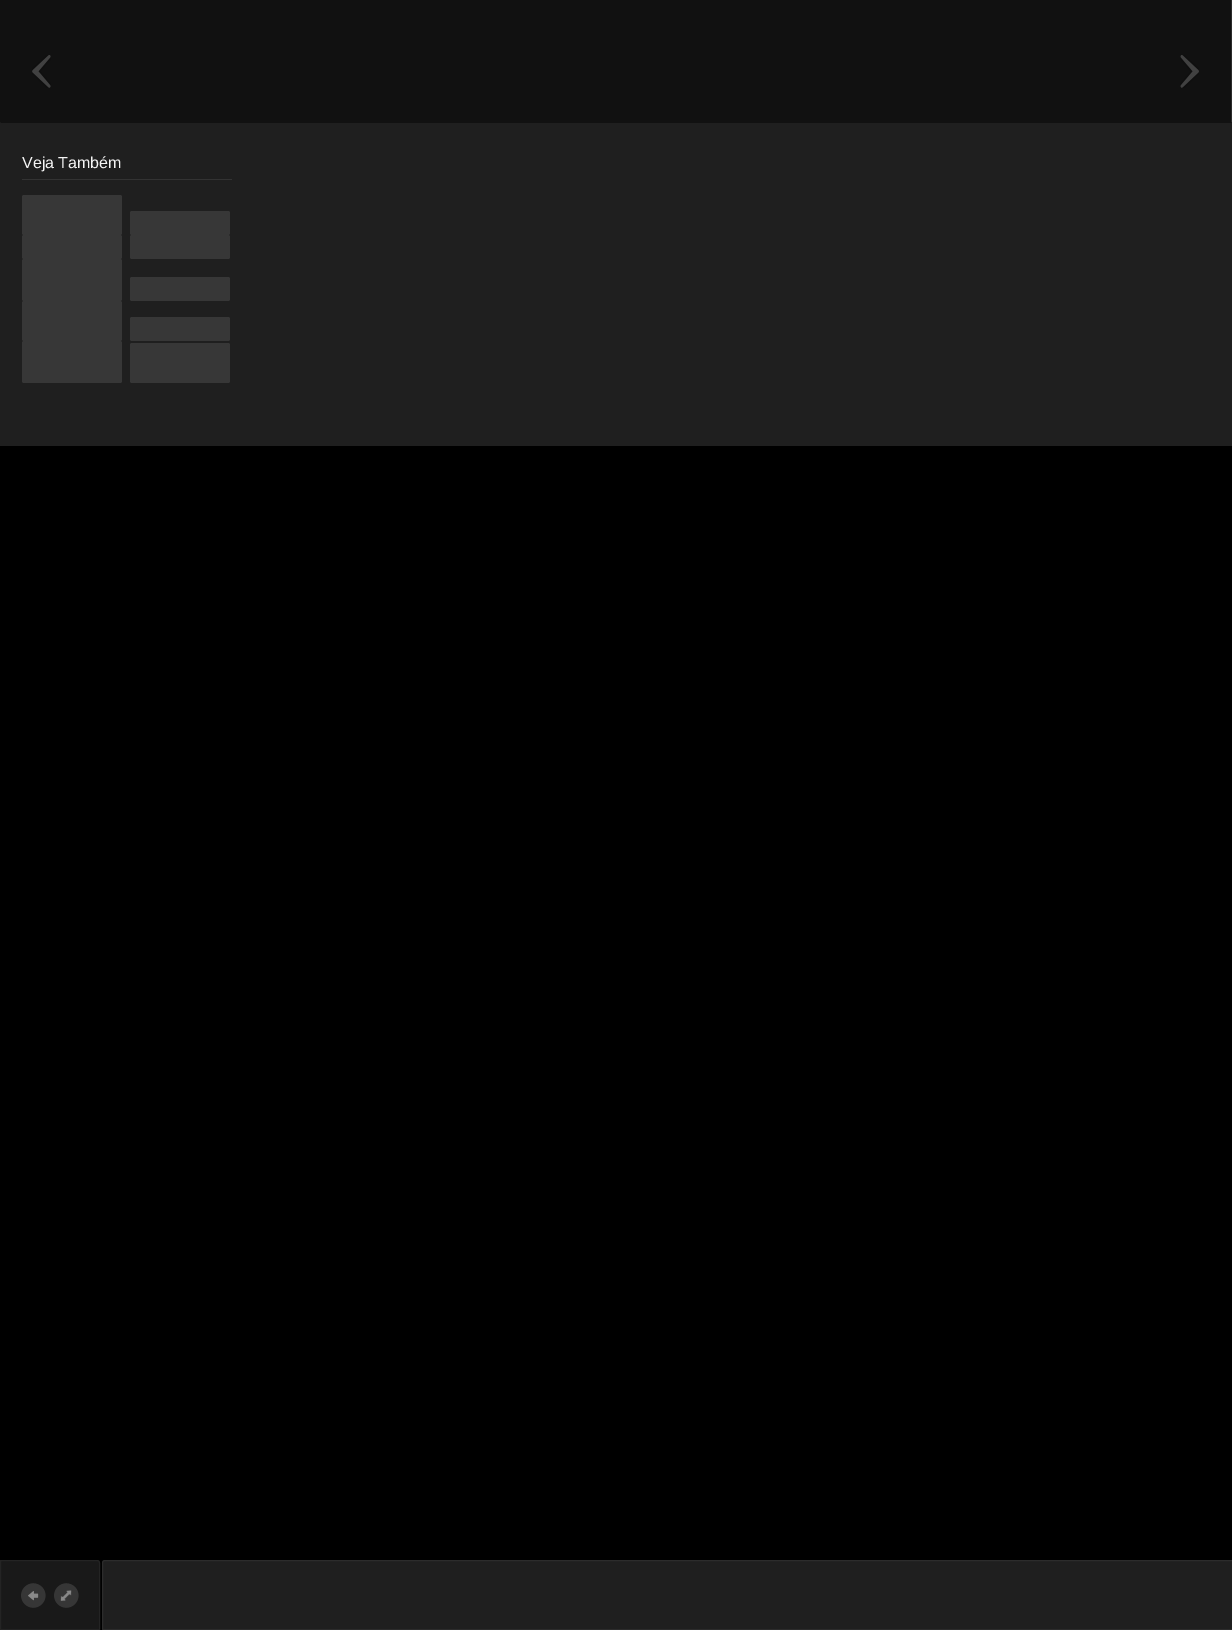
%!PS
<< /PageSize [1232 1630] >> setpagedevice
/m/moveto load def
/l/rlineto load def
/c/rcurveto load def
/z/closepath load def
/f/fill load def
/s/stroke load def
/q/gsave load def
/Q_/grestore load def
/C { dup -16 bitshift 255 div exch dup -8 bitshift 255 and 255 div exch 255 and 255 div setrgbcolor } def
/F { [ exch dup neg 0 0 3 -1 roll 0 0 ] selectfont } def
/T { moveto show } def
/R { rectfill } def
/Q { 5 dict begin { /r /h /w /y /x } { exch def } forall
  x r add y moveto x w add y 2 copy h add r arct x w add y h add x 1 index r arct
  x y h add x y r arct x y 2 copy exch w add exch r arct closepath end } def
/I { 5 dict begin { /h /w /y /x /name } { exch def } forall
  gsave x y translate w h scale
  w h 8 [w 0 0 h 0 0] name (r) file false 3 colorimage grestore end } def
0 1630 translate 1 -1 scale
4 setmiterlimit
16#000000 C
0 0 1232 1630 R
16#1F1F1F C
0 121 1232 325 R
16#111111 C
0 0 m 1232 0 l 0 121 l 0 1 -1 2 -2 2 c -1228 0 l -1 0 -2 -1 -2 -2 c z f
16#2C2C2C C
1231 0 1 122 R
(1.rgb) 32 55 19 33 I
(2.rgb) 1180 55 19 33 I
16#333333 C
22 179 210 1 R
/LiberationSans-Regular 16 F
16#F5F5F5 C
(Veja Também) 22 168 T
16#373737 C
22 195 100 40 2 Q f
130 211 100 24 2 Q f
22 235 100 24 2 Q f
130 235 100 24 2 Q f
22 259 100 42 2 Q f
130 277 100 24 2 Q f
22 301 100 40 2 Q f
130 317 100 24 2 Q f
22 341 100 42 2 Q f
130 343 100 40 2 Q f
16#191919 C
.5 1560.5 m 96.5 0 l 1.5 0 2.5 1 2.5 2.5 c 0 66.5 l -99 0 l z q f Q_
16#242424 C
s
(3.rgb) 21 1583 25 25 I
(4.rgb) 54 1583 25 25 I
16#1F1F1F C
105 1560.5 m 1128 0 l 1.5 0 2.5 1 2.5 2.5 c 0 66.5 l -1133 0 l 0 -66.5 l 0 -1.5 1 -2.5 2.5 -2.5 c z q f Q_
16#2C2C2C C
s
showpage
